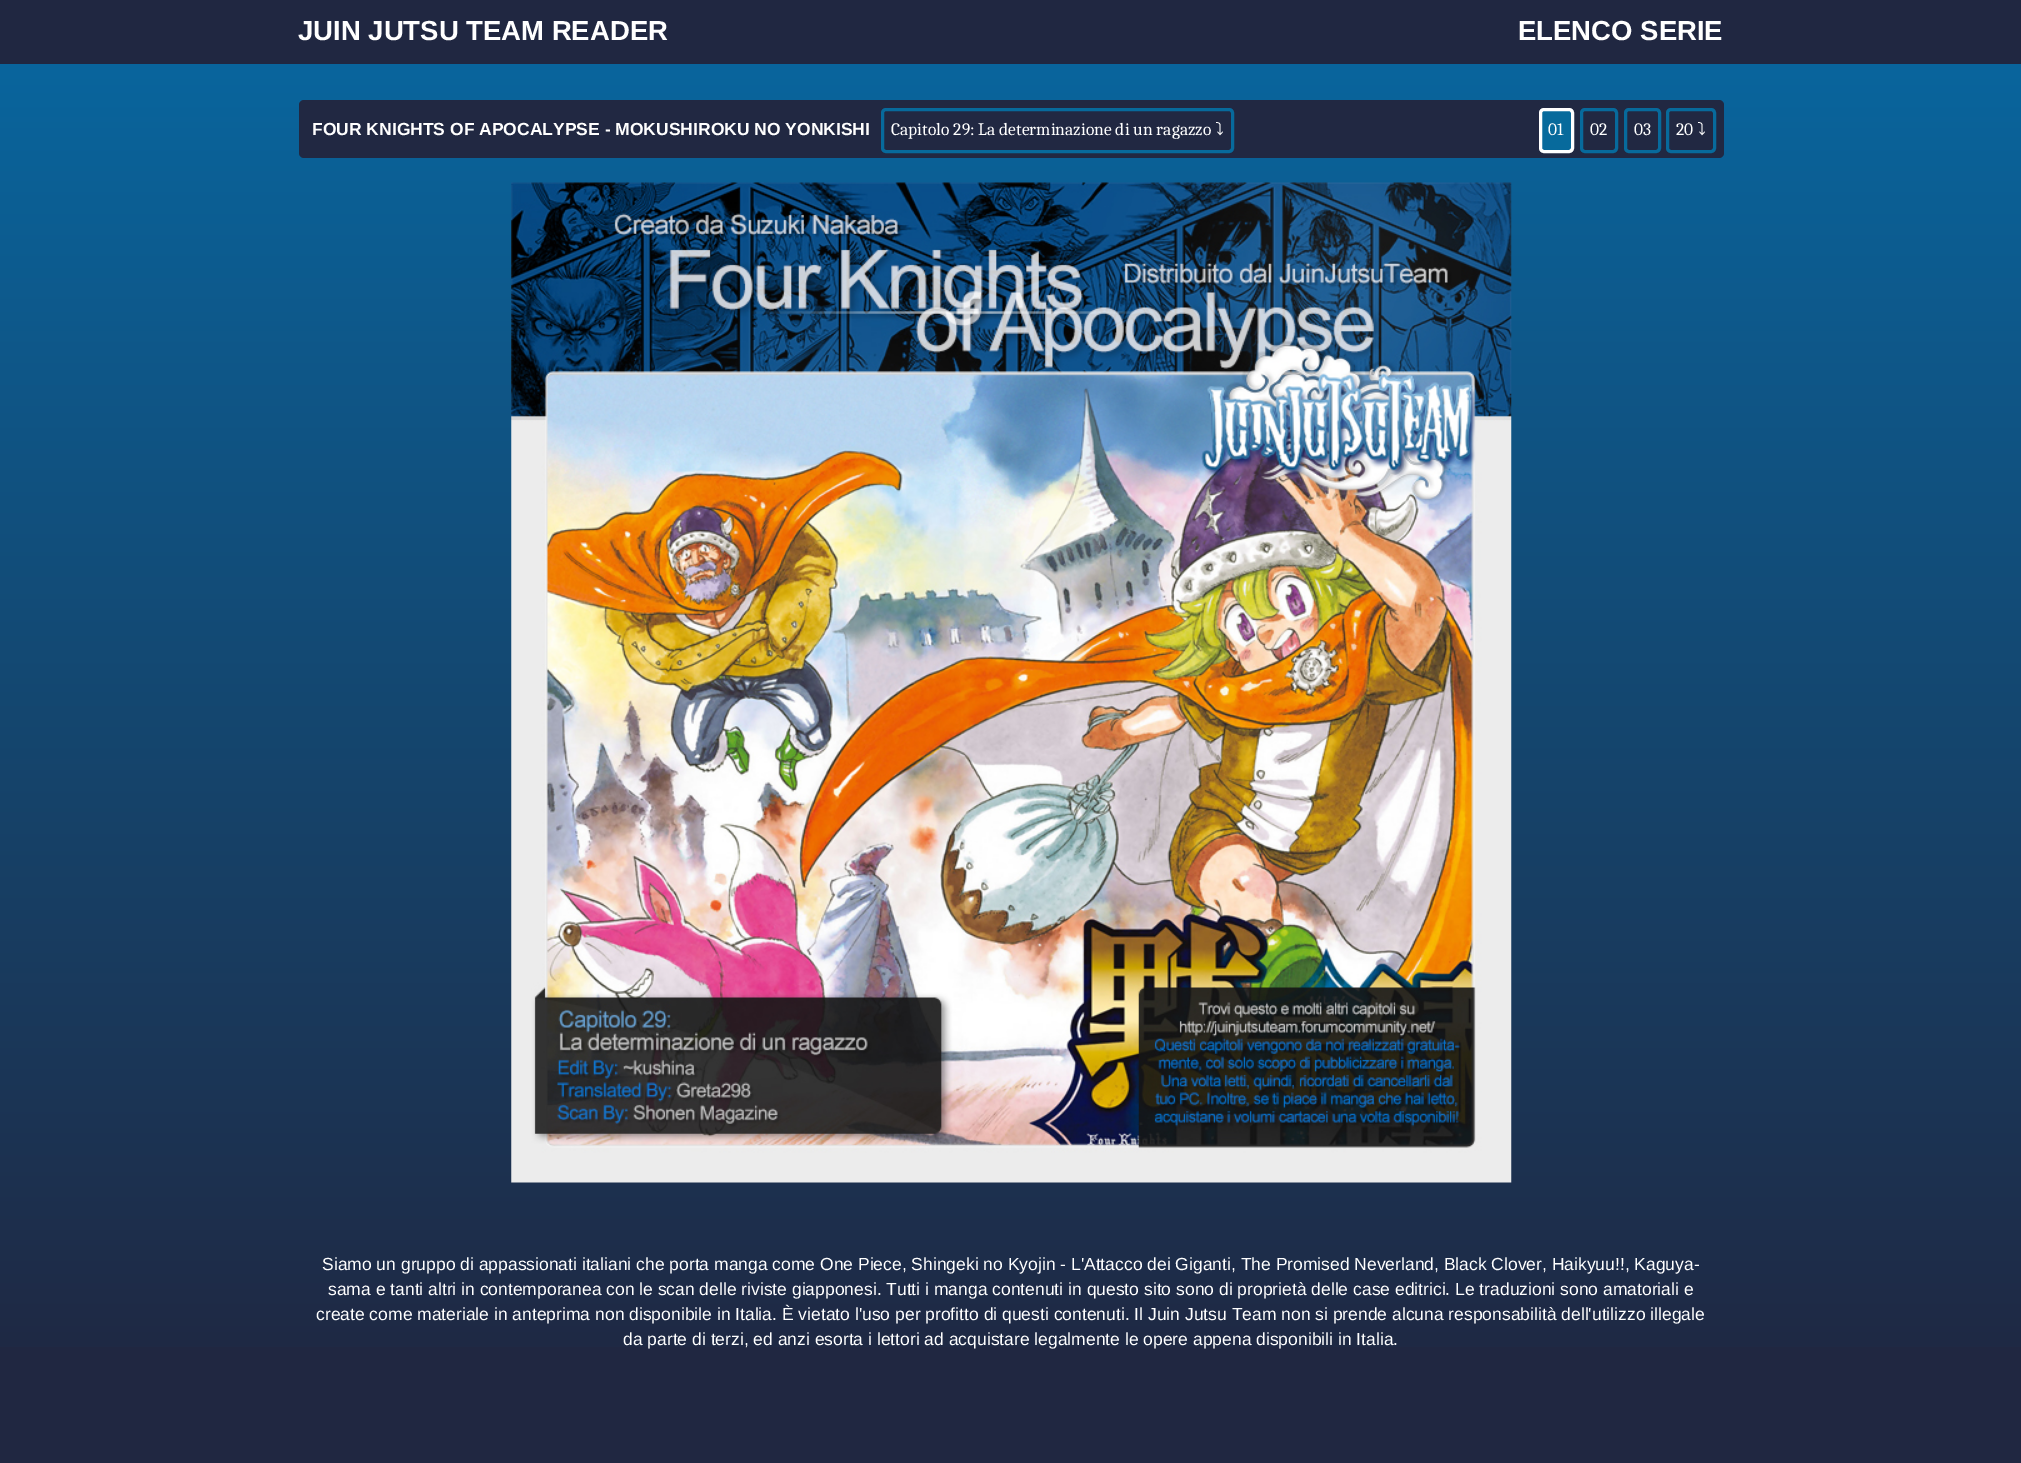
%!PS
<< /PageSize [2021 1463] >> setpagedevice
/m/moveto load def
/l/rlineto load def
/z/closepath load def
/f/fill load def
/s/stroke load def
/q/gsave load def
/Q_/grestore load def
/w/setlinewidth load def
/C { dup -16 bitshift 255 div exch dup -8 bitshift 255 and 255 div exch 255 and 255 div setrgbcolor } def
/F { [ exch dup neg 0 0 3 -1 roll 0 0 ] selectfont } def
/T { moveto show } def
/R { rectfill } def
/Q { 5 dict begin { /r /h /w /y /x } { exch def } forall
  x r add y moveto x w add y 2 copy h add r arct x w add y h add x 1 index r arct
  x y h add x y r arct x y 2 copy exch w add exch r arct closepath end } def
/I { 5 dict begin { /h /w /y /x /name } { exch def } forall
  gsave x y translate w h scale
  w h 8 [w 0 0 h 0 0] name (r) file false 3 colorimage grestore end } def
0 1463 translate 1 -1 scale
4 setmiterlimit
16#202741 C
0 0 2021 1463 R
q 0 64 m 2021 0 l 0 1283 l -2021 0 l z clip newpath
<< /ShadingType 2 /ColorSpace /DeviceRGB /Coords [1011 0 1011 1383] /Extend [true true] /Function << /FunctionType 2 /Domain [0 1] /C0 [.031 .408 .635] /C1 [.125 .153 .255] /N 1 >> >> shfill Q_
/LiberationSans-Bold 27.5 F
16#FFFFFF C
(JUIN JUTSU TEAM READER) 298 40 T
(ELENCO SERIE) 1518 40 T
16#212842 C
299 100 1425 58 5 Q f
/LiberationSans-Bold 17.5 F
16#FFFFFF C
(FOUR KNIGHTS OF APOCALYPSE - MOKUSHIROKU NO YONKISHI) 312 135 T
16#076A9C C
3 w
882.5 109.5 350 42 3.5 Q s
/Caladea-Regular 17.5 F
16#FFFFFF C
(Capitolo 29: La determinazione di un ragazzo) 891 135 T
/IPAGothic-Regular 17.5 F
(⤵) 1215 135 T
16#076A9C C
1540.5 109.5 32 42 3.5 Q q f Q_
16#FFFFFF C
s
/Caladea-Regular 17.5 F
(01) 1548 135 T
16#076A9C C
1581.5 109.5 35 42 3.5 Q s
16#FFFFFF C
(02) 1590 135 T
16#076A9C C
1625.5 109.5 34 42 3.5 Q s
16#FFFFFF C
(03) 1634 135 T
16#076A9C C
1667.5 109.5 47 42 3.5 Q s
16#FFFFFF C
(20) 1676 135 T
/IPAGothic-Regular 17.5 F
(⤵) 1697 135 T
(1.rgb) 511 182 1001 1001 I
/LiberationSans-Regular 17.5 F
(Siamo un gruppo di appassionati italiani che porta manga come One Piece, Shingeki no Kyojin - L'Attacco dei Giganti, The Promised Neverland, Black Clover, Haikyuu!!, Kaguya-) 322 1270 T
(sama e tanti altri in contemporanea con le scan delle riviste giapponesi. Tutti i manga contenuti in questo sito sono di proprietà delle case editrici. Le traduzioni sono amatoriali e) 328 1295 T
(create come materiale in anteprima non disponibile in Italia. È vietato l'uso per profitto di questi contenuti. Il Juin Jutsu Team non si prende alcuna responsabilità dell'utilizzo illegale) 316 1320 T
(da parte di terzi, ed anzi esorta i lettori ad acquistare legalmente le opere appena disponibili in Italia.) 623 1345 T
showpage
